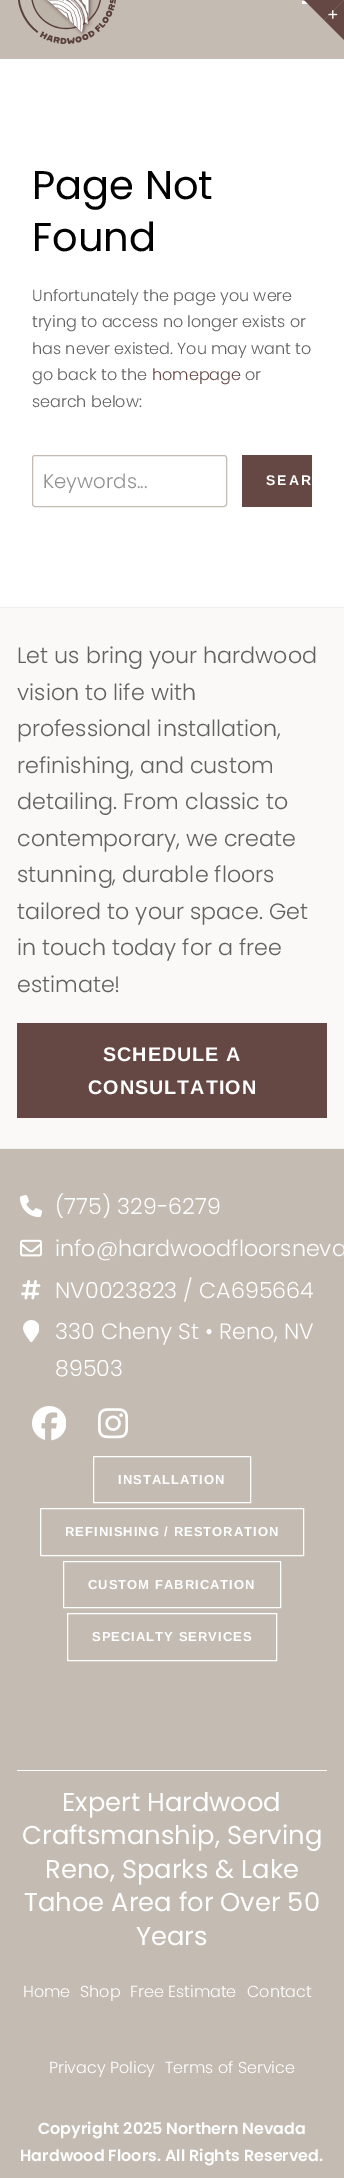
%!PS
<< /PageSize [344 2178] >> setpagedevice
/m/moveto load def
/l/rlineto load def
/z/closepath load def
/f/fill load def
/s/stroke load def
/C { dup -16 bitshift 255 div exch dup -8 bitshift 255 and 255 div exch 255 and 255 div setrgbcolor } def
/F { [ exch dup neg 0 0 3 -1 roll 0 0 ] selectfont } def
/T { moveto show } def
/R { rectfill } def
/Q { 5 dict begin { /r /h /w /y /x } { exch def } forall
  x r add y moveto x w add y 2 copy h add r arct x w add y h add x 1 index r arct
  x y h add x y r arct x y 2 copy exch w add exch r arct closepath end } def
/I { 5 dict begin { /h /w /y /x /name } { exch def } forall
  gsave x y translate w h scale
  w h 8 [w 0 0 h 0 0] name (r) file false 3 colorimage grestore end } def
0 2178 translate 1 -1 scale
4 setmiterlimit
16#FFFFFF C
0 0 344 2178 R
16#C4BBB2 C
0 0 344 59 R
16#FFFFFF C
302 1 6 3 R
16#654743 C
304 0 m 40 0 l -20 20 l z f
344 0 m 0 40 l -20 -20 l z f
(1.rgb) 328 10 10 9 I
(2.rgb) 18 0 98 44 I
/Poppins-Regular 40 F
16#000000 C
(Page Not) 32 199 T
(Found) 32 251 T
/Poppins-Light 16 F
16#616161 C
(Unfortunately the page you were) 32 301 T
(trying to access no longer exists or) 32 327 T
(has never existed. You may want to) 32 354 T
(go back to the) 32 380 T
16#654743 C
(homepage) 152 380 T
16#616161 C
(or) 245 380 T
(search below:) 32 407 T
16#C4BCB3 C
32.5 455.5 194 51 2.5 Q s
/Poppins-Light 19.75 F
16#909090 C
(Keywords...) 43 488 T
16#654743 C
242 455 70 52 R
/LiberationSans-Bold 14 F
16#FFFFFF C
266 485 m 2 0 (SEAR) ashow
16#FAF9F8 C
0 608 344 540 R
16#F0F0F0 C
0 607 344 1 R
0 1148 344 1 R
/Poppins-Light 22.2 F
16#616161 C
(Let us bring your hardwood) 17 663 T
(vision to life with) 17 700 T
(professional installation,) 17 736 T
(refinishing, and custom) 17 773 T
(detailing. From classic to) 17 809 T
(contemporary, we create) 17 846 T
(stunning, durable floors) 17 882 T
(tailored to your space. Get) 17 919 T
(in touch today for a free) 17 955 T
(estimate!) 17 992 T
16#654743 C
17 1023 310 95 R
/LiberationSans-Bold 19.75 F
16#FFFFFF C
103 1061 m 1 0 (SCHEDULE A) ashow
88 1094 m 1 0 (CONSULTATION) ashow
16#C4BCB3 C
0 1149 344 1029 R
(3.rgb) 20 1195 22 22 I
/Poppins-Light 22.2 F
16#FFFFFF C
(\(775\) 329-6279) 55 1214 T
(4.rgb) 20 1239 22 18 I
(info@hardwoodfloorsneva) 55 1256 T
(5.rgb) 21 1280 20 20 I
(NV0023823 / CA695664) 55 1298 T
(6.rgb) 23 1320 16 22 I
(330 Cheny St • Reno, NV) 55 1339 T
(89503) 55 1376 T
(7.rgb) 32 1406 34 35 I
(8.rgb) 98 1408 30 31 I
93.5 1456.5 157 46 rectstroke
/LiberationSans-Bold 13 F
118 1484 m 1 0 (INSTALLATION) ashow
40.5 1508.5 263 47 rectstroke
65 1536 m 1 0 (REFINISHING / RESTORATION) ashow
63.5 1561.5 217 46 rectstroke
88 1589 m 1 0 (CUSTOM FABRICATION) ashow
67.5 1613.5 209 47 rectstroke
92 1641 m 1 0 (SPECIALTY SERVICES) ashow
17 1770 310 1 R
/Poppins-Regular 25.8 F
(Expert Hardwood) 62 1811 T
(Craftsmanship, Serving) 22 1844 T
(Reno, Sparks & Lake) 45 1878 T
(Tahoe Area for Over 50) 24 1911 T
(Years) 136 1945 T
/Poppins-Light 16 F
(Home) 23 1997 T
(Shop) 80 1997 T
(Free Estimate) 130 1997 T
(Contact) 247 1997 T
(Privacy Policy) 49 2073 T
(Terms of Service) 165 2073 T
/Poppins-SemiBold 16 F
(Copyright 2025 Northern Nevada) 38 2134 T
(Hardwood Floors. All Rights Reserved.) 20 2161 T
showpage
